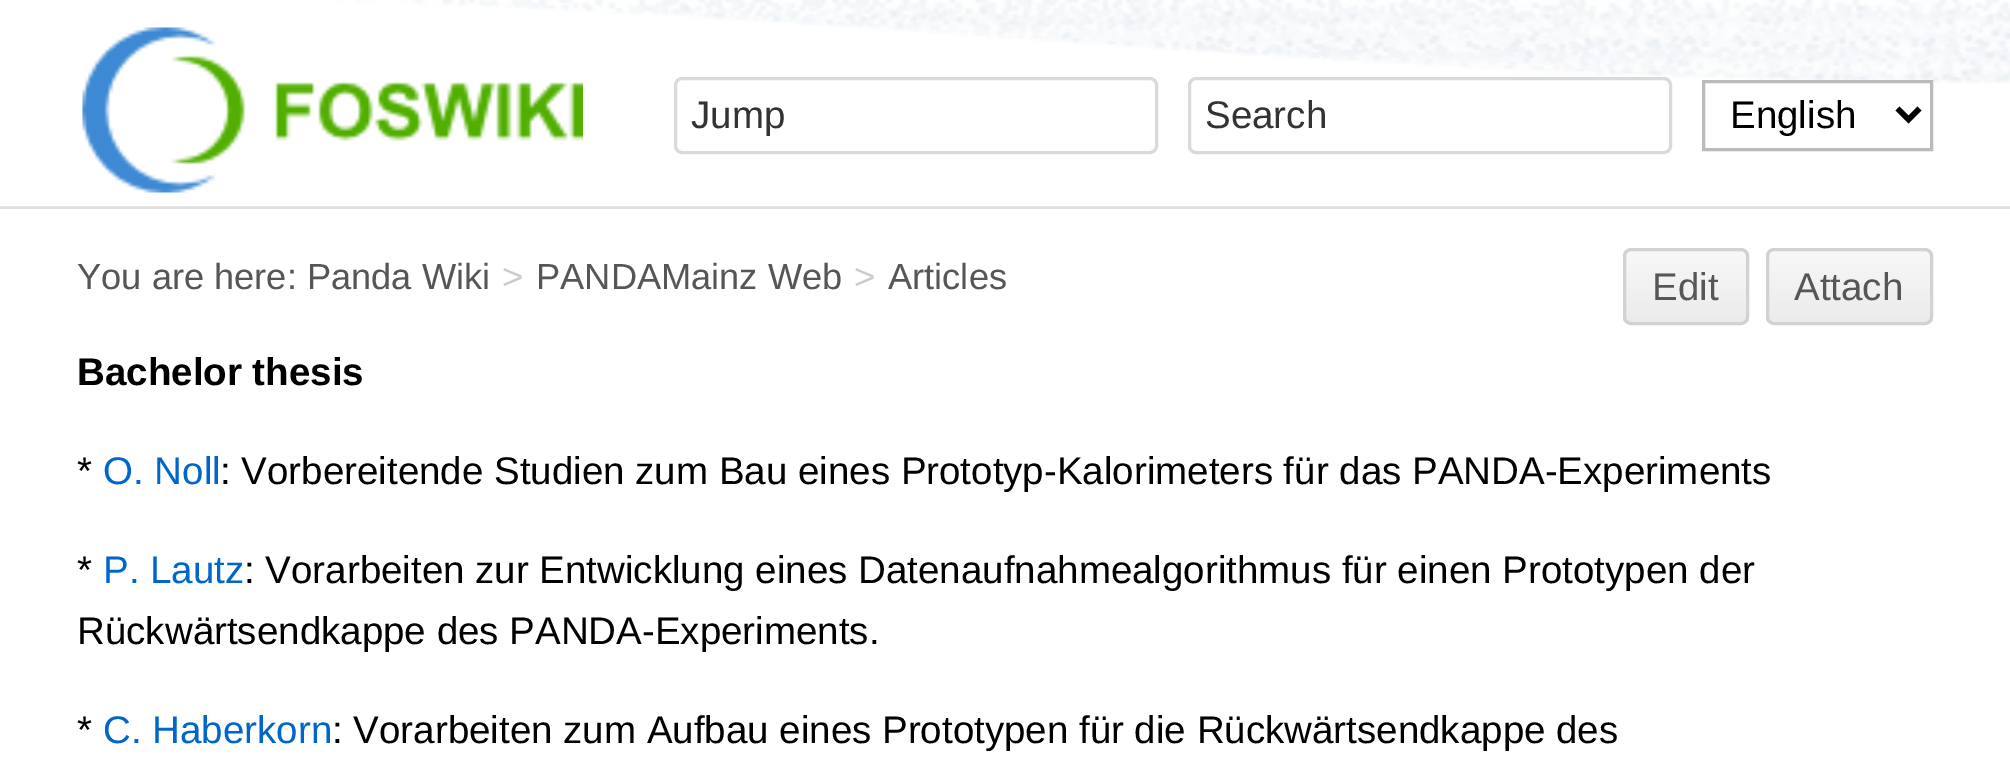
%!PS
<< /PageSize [2010 783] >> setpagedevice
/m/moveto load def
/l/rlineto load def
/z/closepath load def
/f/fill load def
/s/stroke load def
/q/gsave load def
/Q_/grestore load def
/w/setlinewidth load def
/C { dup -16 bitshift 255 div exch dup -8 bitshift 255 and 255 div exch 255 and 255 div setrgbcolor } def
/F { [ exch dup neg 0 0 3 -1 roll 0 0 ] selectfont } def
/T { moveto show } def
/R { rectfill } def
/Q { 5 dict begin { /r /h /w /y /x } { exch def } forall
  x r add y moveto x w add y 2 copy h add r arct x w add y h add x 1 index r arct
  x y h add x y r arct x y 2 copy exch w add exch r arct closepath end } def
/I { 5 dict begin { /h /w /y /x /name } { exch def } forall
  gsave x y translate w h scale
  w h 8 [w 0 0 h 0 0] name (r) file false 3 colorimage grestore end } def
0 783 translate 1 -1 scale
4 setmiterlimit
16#DFDFDF C
0 0 2010 783 R
(1.rgb) 0 0 2010 207 I
(2.rgb) 82 27 501 166 I
16#DADADA C
3 w
675.5 78.5 481 74 6.5 Q s
/LiberationSans-Regular 38.5 F
16#333333 C
(Jump) 691 128 T
16#FFFFFF C
1189.5 78.5 481 74 6.5 Q q f Q_
16#DADADA C
s
16#333333 C
(Search) 1205 128 T
16#BBBBBB C
1703.5 81.5 228 68 rectstroke
16#000000 C
5.5 w
1897.5 108.5 m 11 11 l 11 -11 l s
(English) 1730 128 T
16#FFFFFF C
0 209 2010 574 R
/LiberationSans-Regular 36.25 F
16#565656 C
(You are here: Panda Wiki) 77 289 T
16#CCCCCC C
(>) 502 289 T
16#565656 C
(PANDAMainz Web) 536 289 T
16#CCCCCC C
(>) 854 289 T
16#565656 C
(Articles) 888 289 T
q
1623 248 126 77 8 Q clip newpath
q 1623 250 m 126 0 l 0 72 l -126 0 l z clip newpath
<< /ShadingType 2 /ColorSpace /DeviceRGB /Coords [1686 250 1686 322] /Extend [true true] /Function << /FunctionType 2 /Domain [0 1] /C0 [.973 .973 .973] /C1 [.922 .922 .922] /N 1 >> >> shfill Q_
Q_
16#D2D2D2 C
3 w
1624.5 249.5 123 74 6.5 Q s
/LiberationSans-Regular 38.5 F
16#565656 C
(Edit) 1652 300 T
q
1766 248 167 77 8 Q clip newpath
q 1766 250 m 167 0 l 0 72 l -167 0 l z clip newpath
<< /ShadingType 2 /ColorSpace /DeviceRGB /Coords [1849 250 1849 322] /Extend [true true] /Function << /FunctionType 2 /Domain [0 1] /C0 [.973 .973 .973] /C1 [.922 .922 .922] /N 1 >> >> shfill Q_
Q_
16#D2D2D2 C
1767.5 249.5 164 74 6.5 Q s
16#565656 C
(Attach) 1794 300 T
/LiberationSans-Bold 38.5 F
16#000000 C
(Bachelor thesis) 77 385 T
/LiberationSans-Regular 38.5 F
(*) 77 484 T
16#0066CC C
(O. Noll) 103 484 T
16#000000 C
(: Vorbereitende Studien zum Bau eines Prototyp-Kalorimeters für das PANDA-Experiments) 220 484 T
(*) 77 583 T
16#0066CC C
(P. Lautz) 103 583 T
16#000000 C
(: Vorarbeiten zur Entwicklung eines Datenaufnahmealgorithmus für einen Prototypen der) 244 583 T
(Rückwärtsendkappe des PANDA-Experiments.) 77 644 T
(*) 77 743 T
16#0066CC C
(C. Haberkorn) 103 743 T
16#000000 C
(: Vorarbeiten zum Aufbau eines Prototypen für die Rückwärtsendkappe des) 332 743 T
showpage
